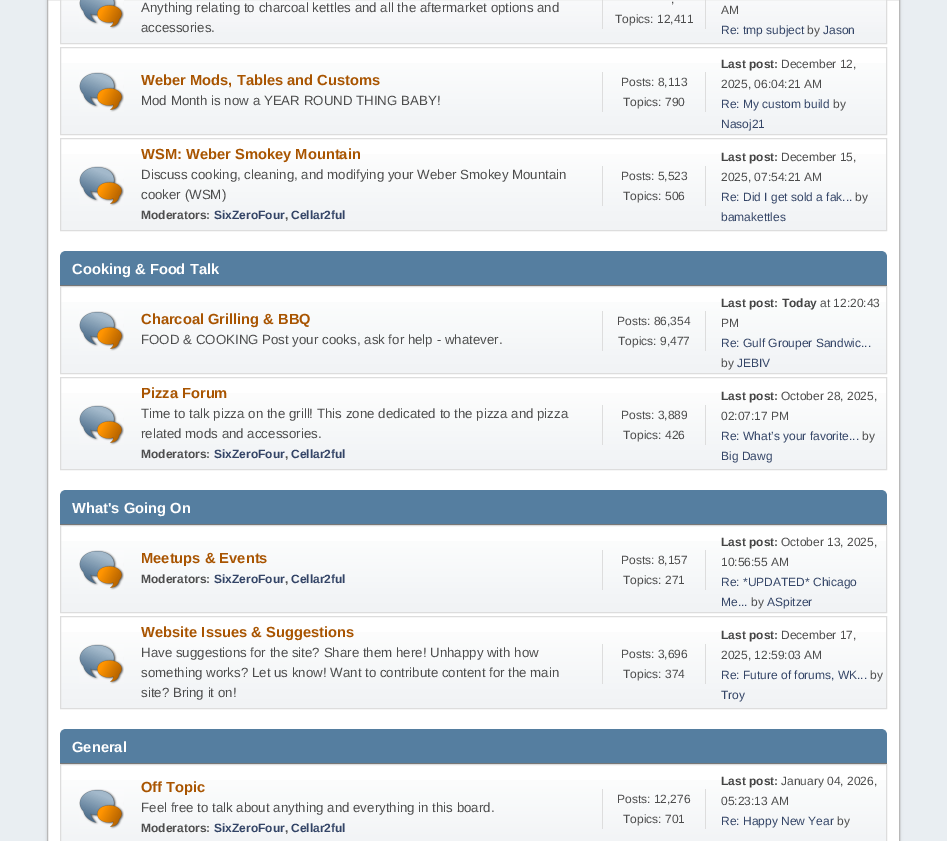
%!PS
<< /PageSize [947 841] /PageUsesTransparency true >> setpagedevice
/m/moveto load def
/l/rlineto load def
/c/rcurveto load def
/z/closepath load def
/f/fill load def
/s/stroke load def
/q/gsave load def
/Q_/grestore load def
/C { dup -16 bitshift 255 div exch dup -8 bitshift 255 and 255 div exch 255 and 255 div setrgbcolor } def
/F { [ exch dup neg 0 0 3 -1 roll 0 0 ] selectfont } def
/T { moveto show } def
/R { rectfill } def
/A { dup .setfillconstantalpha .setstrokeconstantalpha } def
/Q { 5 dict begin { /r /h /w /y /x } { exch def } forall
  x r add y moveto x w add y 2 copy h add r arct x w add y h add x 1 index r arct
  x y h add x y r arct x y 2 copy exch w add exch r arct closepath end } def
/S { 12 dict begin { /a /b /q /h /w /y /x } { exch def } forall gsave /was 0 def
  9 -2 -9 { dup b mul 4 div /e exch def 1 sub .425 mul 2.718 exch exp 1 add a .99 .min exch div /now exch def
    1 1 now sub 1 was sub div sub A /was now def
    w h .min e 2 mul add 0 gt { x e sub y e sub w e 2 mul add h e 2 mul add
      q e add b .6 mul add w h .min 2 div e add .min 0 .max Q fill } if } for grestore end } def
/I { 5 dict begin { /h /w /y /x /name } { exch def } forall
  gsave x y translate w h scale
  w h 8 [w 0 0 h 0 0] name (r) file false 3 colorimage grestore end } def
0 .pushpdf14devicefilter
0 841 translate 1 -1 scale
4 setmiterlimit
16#E9EEF2 C
0 0 947 841 R
16#000000 C
47 -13 853 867 8 1.5 .14 S
16#FFFFFF C
47.5 -.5 m 852 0 l 0 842 l -852 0 l z q f Q_
16#B8B8B8 C
s
q 61 0 m 825 0 l 0 43 l -825 0 l z clip newpath
<< /ShadingType 2 /ColorSpace /DeviceRGB /Coords [474 -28 474 43] /Extend [true true] /Function << /FunctionType 3 /Domain [0 1] /Functions [<< /FunctionType 2 /Domain [0 1] /C0 [1 1 1] /C1 [.945 .953 .961] /N 1 >> << /FunctionType 2 /Domain [0 1] /C0 [.945 .953 .961] /C1 [.945 .953 .961] /N 1 >>] /Bounds [.95] /Encode [0 1 0 1] >> >> shfill Q_
16#DDDDDD C
60.5 -.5 826 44 rectstroke
(1.rgb) 79 0 45 29 I
/LiberationSans-Regular 13.3 F
16#4D4D4D C
(Anything relating to charcoal kettles and all the aftermarket options and) 141 12 T
(accessories.) 141 32 T
16#DDDDDD C
705 0 1 29 R
602 0 1 29 R
/LiberationSans-Regular 12 F
16#4D4D4D C
(,) 671 3 T
(Topics: 12,411) 615 23 T
(AM) 721 14 T
16#334466 C
(Re: tmp subject) 721 34 T
16#4D4D4D C
(by) 807 34 T
16#334466 C
(Jason) 823 34 T
q 61 63 m 825 0 l 0 71 l -825 0 l z clip newpath
<< /ShadingType 2 /ColorSpace /DeviceRGB /Coords [474 48 474 134] /Extend [true true] /Function << /FunctionType 3 /Domain [0 1] /Functions [<< /FunctionType 2 /Domain [0 1] /C0 [1 1 1] /C1 [.945 .953 .961] /N 1 >> << /FunctionType 2 /Domain [0 1] /C0 [.945 .953 .961] /C1 [.945 .953 .961] /N 1 >>] /Bounds [.95] /Encode [0 1 0 1] >> >> shfill Q_
16#DDDDDD C
60.5 47.5 826 87 rectstroke
(2.rgb) 79 72 45 40 I
/LiberationSans-Bold 14.7 F
16#A85400 C
(Weber Mods, Tables and Customs) 141 85 T
/LiberationSans-Regular 13.3 F
16#4D4D4D C
(Mod Month is now a YEAR ROUND THING BABY!) 141 105 T
16#DDDDDD C
705 72 1 40 R
602 72 1 40 R
/LiberationSans-Regular 12 F
16#4D4D4D C
(Posts: 8,113) 621 86 T
(Topics: 790) 623 106 T
/LiberationSans-Bold 12 F
16#444444 C
(Last post:) 721 68 T
/LiberationSans-Regular 12 F
16#4D4D4D C
(December 12,) 781 68 T
(2025, 06:04:21 AM) 721 88 T
16#334466 C
(Re: My custom build) 721 108 T
16#4D4D4D C
(by) 833 108 T
16#334466 C
(Nasoj21) 721 128 T
q 61 154 m 825 0 l 0 76 l -825 0 l z clip newpath
<< /ShadingType 2 /ColorSpace /DeviceRGB /Coords [474 139 474 230] /Extend [true true] /Function << /FunctionType 3 /Domain [0 1] /Functions [<< /FunctionType 2 /Domain [0 1] /C0 [1 1 1] /C1 [.945 .953 .961] /N 1 >> << /FunctionType 2 /Domain [0 1] /C0 [.945 .953 .961] /C1 [.945 .953 .961] /N 1 >>] /Bounds [.95] /Encode [0 1 0 1] >> >> shfill Q_
16#DDDDDD C
60.5 138.5 826 92 rectstroke
(3.rgb) 79 166 45 40 I
/LiberationSans-Bold 14.7 F
16#A85400 C
(WSM: Weber Smokey Mountain) 141 159 T
/LiberationSans-Regular 13.3 F
16#4D4D4D C
(Discuss cooking, cleaning, and modifying your Weber Smokey Mountain) 141 179 T
(cooker \(WSM\)) 141 199 T
/LiberationSans-Bold 12 F
(Moderators:) 141 219 T
16#334466 C
(SixZeroFour) 214 219 T
16#4D4D4D C
(,) 285 219 T
16#334466 C
(Cellar2ful) 291 219 T
16#DDDDDD C
705 166 1 40 R
602 166 1 40 R
/LiberationSans-Regular 12 F
16#4D4D4D C
(Posts: 5,523) 621 180 T
(Topics: 506) 623 200 T
/LiberationSans-Bold 12 F
16#444444 C
(Last post:) 721 161 T
/LiberationSans-Regular 12 F
16#4D4D4D C
(December 15,) 781 161 T
(2025, 07:54:21 AM) 721 181 T
16#334466 C
(Re: Did I get sold a fak...) 721 201 T
16#4D4D4D C
(by) 855 201 T
16#334466 C
(bamakettles) 721 221 T
16#557EA0 C
66 251 m 815 0 l 3.5 0 6 2.5 6 6 c 0 29 l -827 0 l 0 -29 l 0 -3.5 2.5 -6 6 -6 c z f
16#777777 C
60 285 827 1 R
/LiberationSans-Bold 14.7 F
16#FFFFFF C
(Cooking & Food Talk) 72 274 T
q 61 302 m 825 0 l 0 71 l -825 0 l z clip newpath
<< /ShadingType 2 /ColorSpace /DeviceRGB /Coords [474 287 474 373] /Extend [true true] /Function << /FunctionType 3 /Domain [0 1] /Functions [<< /FunctionType 2 /Domain [0 1] /C0 [1 1 1] /C1 [.945 .953 .961] /N 1 >> << /FunctionType 2 /Domain [0 1] /C0 [.945 .953 .961] /C1 [.945 .953 .961] /N 1 >>] /Bounds [.95] /Encode [0 1 0 1] >> >> shfill Q_
16#DDDDDD C
60.5 286.5 826 87 rectstroke
(2.rgb) 79 311 45 40 I
16#A85400 C
(Charcoal Grilling & BBQ) 141 324 T
/LiberationSans-Regular 13.3 F
16#4D4D4D C
(FOOD & COOKING Post your cooks, ask for help - whatever.) 141 344 T
16#DDDDDD C
705 311 1 40 R
602 311 1 40 R
/LiberationSans-Regular 12 F
16#4D4D4D C
(Posts: 86,354) 617 325 T
(Topics: 9,477) 618 345 T
/LiberationSans-Bold 12 F
16#444444 C
(Last post: Today) 721 307 T
/LiberationSans-Regular 12 F
16#4D4D4D C
(at 12:20:43) 820 307 T
(PM) 721 327 T
16#334466 C
(Re: Gulf Grouper Sandwic...) 721 347 T
16#4D4D4D C
(by) 721 367 T
16#334466 C
(JEBIV) 737 367 T
q 61 393 m 825 0 l 0 76 l -825 0 l z clip newpath
<< /ShadingType 2 /ColorSpace /DeviceRGB /Coords [474 378 474 469] /Extend [true true] /Function << /FunctionType 3 /Domain [0 1] /Functions [<< /FunctionType 2 /Domain [0 1] /C0 [1 1 1] /C1 [.945 .953 .961] /N 1 >> << /FunctionType 2 /Domain [0 1] /C0 [.945 .953 .961] /C1 [.945 .953 .961] /N 1 >>] /Bounds [.95] /Encode [0 1 0 1] >> >> shfill Q_
16#DDDDDD C
60.5 377.5 826 92 rectstroke
(3.rgb) 79 405 45 40 I
/LiberationSans-Bold 14.7 F
16#A85400 C
(Pizza Forum) 141 398 T
/LiberationSans-Regular 13.3 F
16#4D4D4D C
(Time to talk pizza on the grill! This zone dedicated to the pizza and pizza) 141 418 T
(related mods and accessories.) 141 438 T
/LiberationSans-Bold 12 F
(Moderators:) 141 458 T
16#334466 C
(SixZeroFour) 214 458 T
16#4D4D4D C
(,) 285 458 T
16#334466 C
(Cellar2ful) 291 458 T
16#DDDDDD C
705 405 1 40 R
602 405 1 40 R
/LiberationSans-Regular 12 F
16#4D4D4D C
(Posts: 3,889) 621 419 T
(Topics: 426) 623 439 T
/LiberationSans-Bold 12 F
16#444444 C
(Last post:) 721 400 T
/LiberationSans-Regular 12 F
16#4D4D4D C
(October 28, 2025,) 781 400 T
(02:07:17 PM) 721 420 T
16#334466 C
(Re: What’s your favorite...) 721 440 T
16#4D4D4D C
(by) 862 440 T
16#334466 C
(Big Dawg) 721 460 T
16#557EA0 C
66 490 m 815 0 l 3.5 0 6 2.5 6 6 c 0 29 l -827 0 l 0 -29 l 0 -3.5 2.5 -6 6 -6 c z f
16#777777 C
60 524 827 1 R
/LiberationSans-Bold 14.7 F
16#FFFFFF C
(What's Going On) 72 513 T
q 61 541 m 825 0 l 0 71 l -825 0 l z clip newpath
<< /ShadingType 2 /ColorSpace /DeviceRGB /Coords [474 526 474 612] /Extend [true true] /Function << /FunctionType 3 /Domain [0 1] /Functions [<< /FunctionType 2 /Domain [0 1] /C0 [1 1 1] /C1 [.945 .953 .961] /N 1 >> << /FunctionType 2 /Domain [0 1] /C0 [.945 .953 .961] /C1 [.945 .953 .961] /N 1 >>] /Bounds [.95] /Encode [0 1 0 1] >> >> shfill Q_
16#DDDDDD C
60.5 525.5 826 87 rectstroke
(2.rgb) 79 550 45 40 I
16#A85400 C
(Meetups & Events) 141 563 T
/LiberationSans-Bold 12 F
16#4D4D4D C
(Moderators:) 141 583 T
16#334466 C
(SixZeroFour) 214 583 T
16#4D4D4D C
(,) 285 583 T
16#334466 C
(Cellar2ful) 291 583 T
16#DDDDDD C
705 550 1 40 R
602 550 1 40 R
/LiberationSans-Regular 12 F
16#4D4D4D C
(Posts: 8,157) 621 564 T
(Topics: 271) 623 584 T
/LiberationSans-Bold 12 F
16#444444 C
(Last post:) 721 546 T
/LiberationSans-Regular 12 F
16#4D4D4D C
(October 13, 2025,) 781 546 T
(10:56:55 AM) 721 566 T
16#334466 C
(Re: *UPDATED* Chicago) 721 586 T
(Me...) 721 606 T
16#4D4D4D C
(by) 751 606 T
16#334466 C
(ASpitzer) 767 606 T
q 61 632 m 825 0 l 0 76 l -825 0 l z clip newpath
<< /ShadingType 2 /ColorSpace /DeviceRGB /Coords [474 617 474 708] /Extend [true true] /Function << /FunctionType 3 /Domain [0 1] /Functions [<< /FunctionType 2 /Domain [0 1] /C0 [1 1 1] /C1 [.945 .953 .961] /N 1 >> << /FunctionType 2 /Domain [0 1] /C0 [.945 .953 .961] /C1 [.945 .953 .961] /N 1 >>] /Bounds [.95] /Encode [0 1 0 1] >> >> shfill Q_
16#DDDDDD C
60.5 616.5 826 92 rectstroke
(3.rgb) 79 644 45 40 I
/LiberationSans-Bold 14.7 F
16#A85400 C
(Website Issues & Suggestions) 141 637 T
/LiberationSans-Regular 13.3 F
16#4D4D4D C
(Have suggestions for the site? Share them here! Unhappy with how) 141 657 T
(something works? Let us know! Want to contribute content for the main) 141 677 T
(site? Bring it on!) 141 697 T
16#DDDDDD C
705 644 1 40 R
602 644 1 40 R
/LiberationSans-Regular 12 F
16#4D4D4D C
(Posts: 3,696) 621 658 T
(Topics: 374) 623 678 T
/LiberationSans-Bold 12 F
16#444444 C
(Last post:) 721 639 T
/LiberationSans-Regular 12 F
16#4D4D4D C
(December 17,) 781 639 T
(2025, 12:59:03 AM) 721 659 T
16#334466 C
(Re: Future of forums, WK...) 721 679 T
16#4D4D4D C
(by) 870 679 T
16#334466 C
(Troy) 721 699 T
16#557EA0 C
66 729 m 815 0 l 3.5 0 6 2.5 6 6 c 0 29 l -827 0 l 0 -29 l 0 -3.5 2.5 -6 6 -6 c z f
16#777777 C
60 763 827 1 R
/LiberationSans-Bold 14.7 F
16#FFFFFF C
(General) 72 752 T
q 61 780 m 825 0 l 0 61 l -825 0 l z clip newpath
<< /ShadingType 2 /ColorSpace /DeviceRGB /Coords [474 765 474 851] /Extend [true true] /Function << /FunctionType 3 /Domain [0 1] /Functions [<< /FunctionType 2 /Domain [0 1] /C0 [1 1 1] /C1 [.945 .953 .961] /N 1 >> << /FunctionType 2 /Domain [0 1] /C0 [.945 .953 .961] /C1 [.945 .953 .961] /N 1 >>] /Bounds [.95] /Encode [0 1 0 1] >> >> shfill Q_
16#DDDDDD C
60.5 764.5 826 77 rectstroke
(2.rgb) 79 789 45 40 I
16#A85400 C
(Off Topic) 141 792 T
/LiberationSans-Regular 13.3 F
16#4D4D4D C
(Feel free to talk about anything and everything in this board.) 141 812 T
/LiberationSans-Bold 12 F
(Moderators:) 141 832 T
16#334466 C
(SixZeroFour) 214 832 T
16#4D4D4D C
(,) 285 832 T
16#334466 C
(Cellar2ful) 291 832 T
16#DDDDDD C
705 789 1 40 R
602 789 1 40 R
/LiberationSans-Regular 12 F
16#4D4D4D C
(Posts: 12,276) 617 803 T
(Topics: 701) 623 823 T
/LiberationSans-Bold 12 F
16#444444 C
(Last post:) 721 785 T
/LiberationSans-Regular 12 F
16#4D4D4D C
(January 04, 2026,) 781 785 T
(05:23:13 AM) 721 805 T
16#334466 C
(Re: Happy New Year) 721 825 T
16#4D4D4D C
(by) 837 825 T
.poppdf14devicefilter showpage
